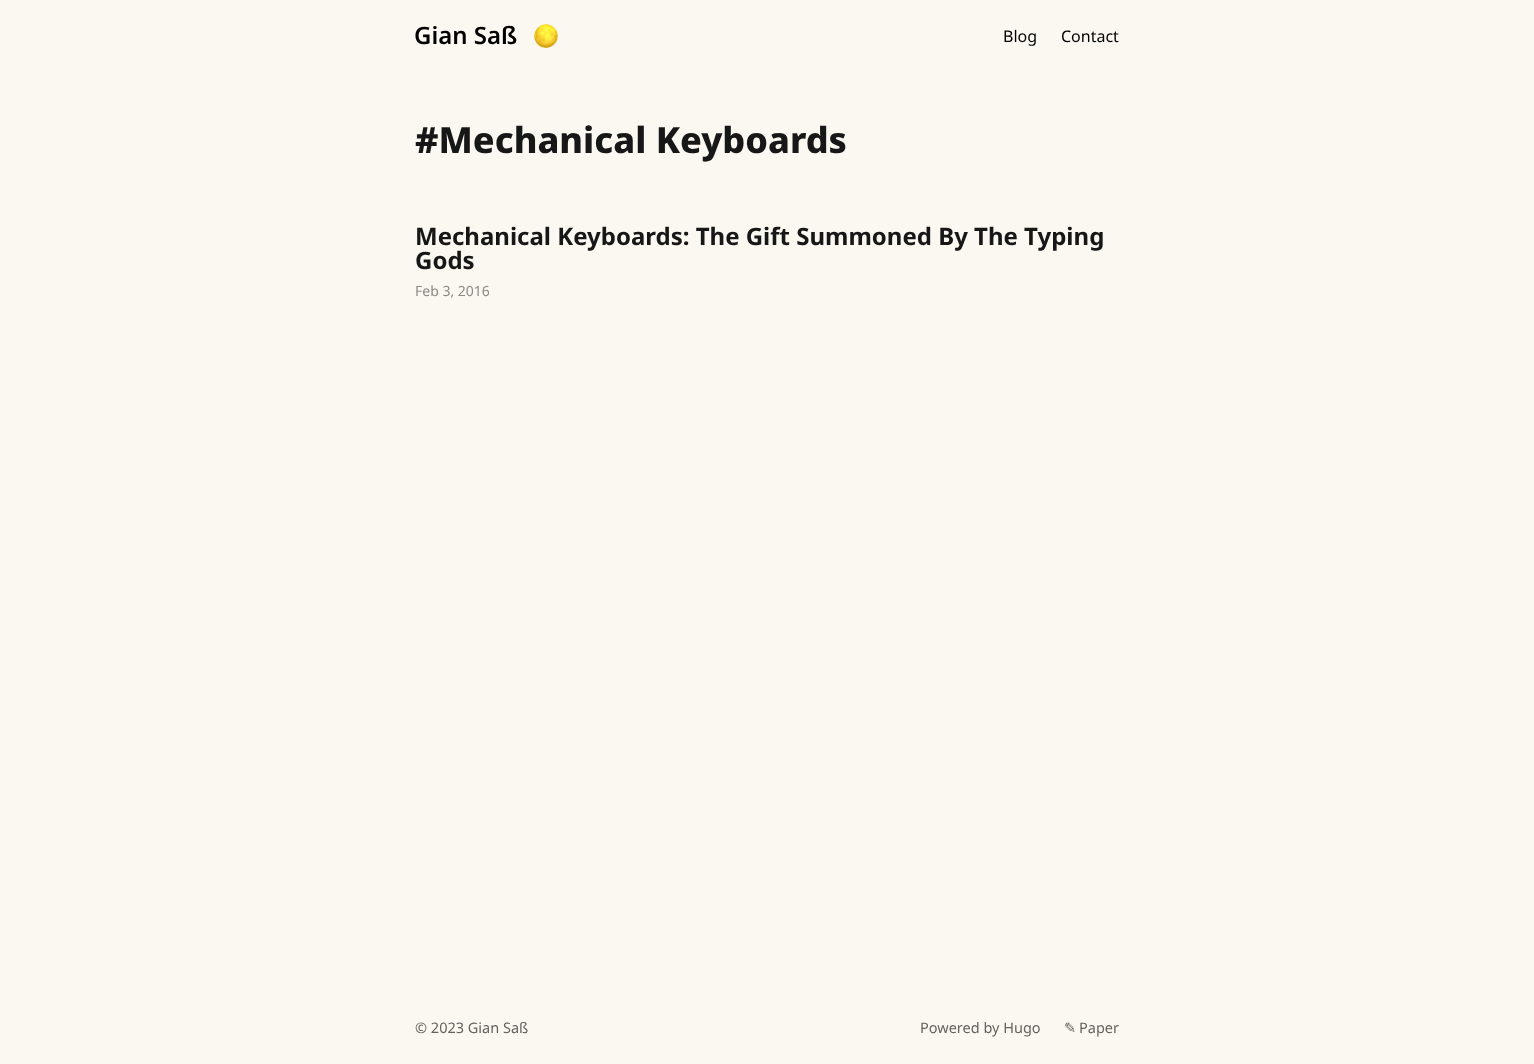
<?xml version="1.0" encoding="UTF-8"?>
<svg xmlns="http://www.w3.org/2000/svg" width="1534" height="1064">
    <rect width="100%" height="100%" fill="#FAF8F1"/>
    <text x="414" y="44" font-family="Noto Sans" font-size="24" font-weight="600" fill="#000000">Gian Saß</text>
    <image x="534" y="24" width="24" height="24" href="img_01.png"/>
    <text x="1003" y="42" font-family="Noto Sans" font-size="16" fill="#000000">Blog</text>
    <text x="1061" y="42" font-family="Noto Sans" font-size="16" fill="#000000">Contact</text>
    <text x="415" y="153" font-family="Noto Sans" font-size="36" font-weight="800" fill="#171717">#Mechanical Keyboards</text>
    <text font-family="Noto Sans" font-size="24" font-weight="700" fill="#171717">
        <tspan x="415" y="245">Mechanical Keyboards: The Gift Summoned By The Typing</tspan>
        <tspan x="415" y="269">Gods</tspan>
    </text>
    <text x="415" y="296" font-family="Noto Sans" font-size="14" fill="#8A8A87">Feb 3, 2016</text>
    <text x="415" y="1033" font-family="Noto Sans" font-size="14.5" fill="#646360">© 2023 Gian Saß</text>
    <text x="920" y="1033" font-family="Noto Sans" font-size="14.5" fill="#646360">Powered by Hugo️️</text>
    <text x="1064" y="1033" font-family="DejaVu Sans" font-size="14.5" fill="#646360">✎</text>
    <text x="1079" y="1033" font-family="Noto Sans" font-size="14.5" fill="#646360">Paper</text>
</svg>
